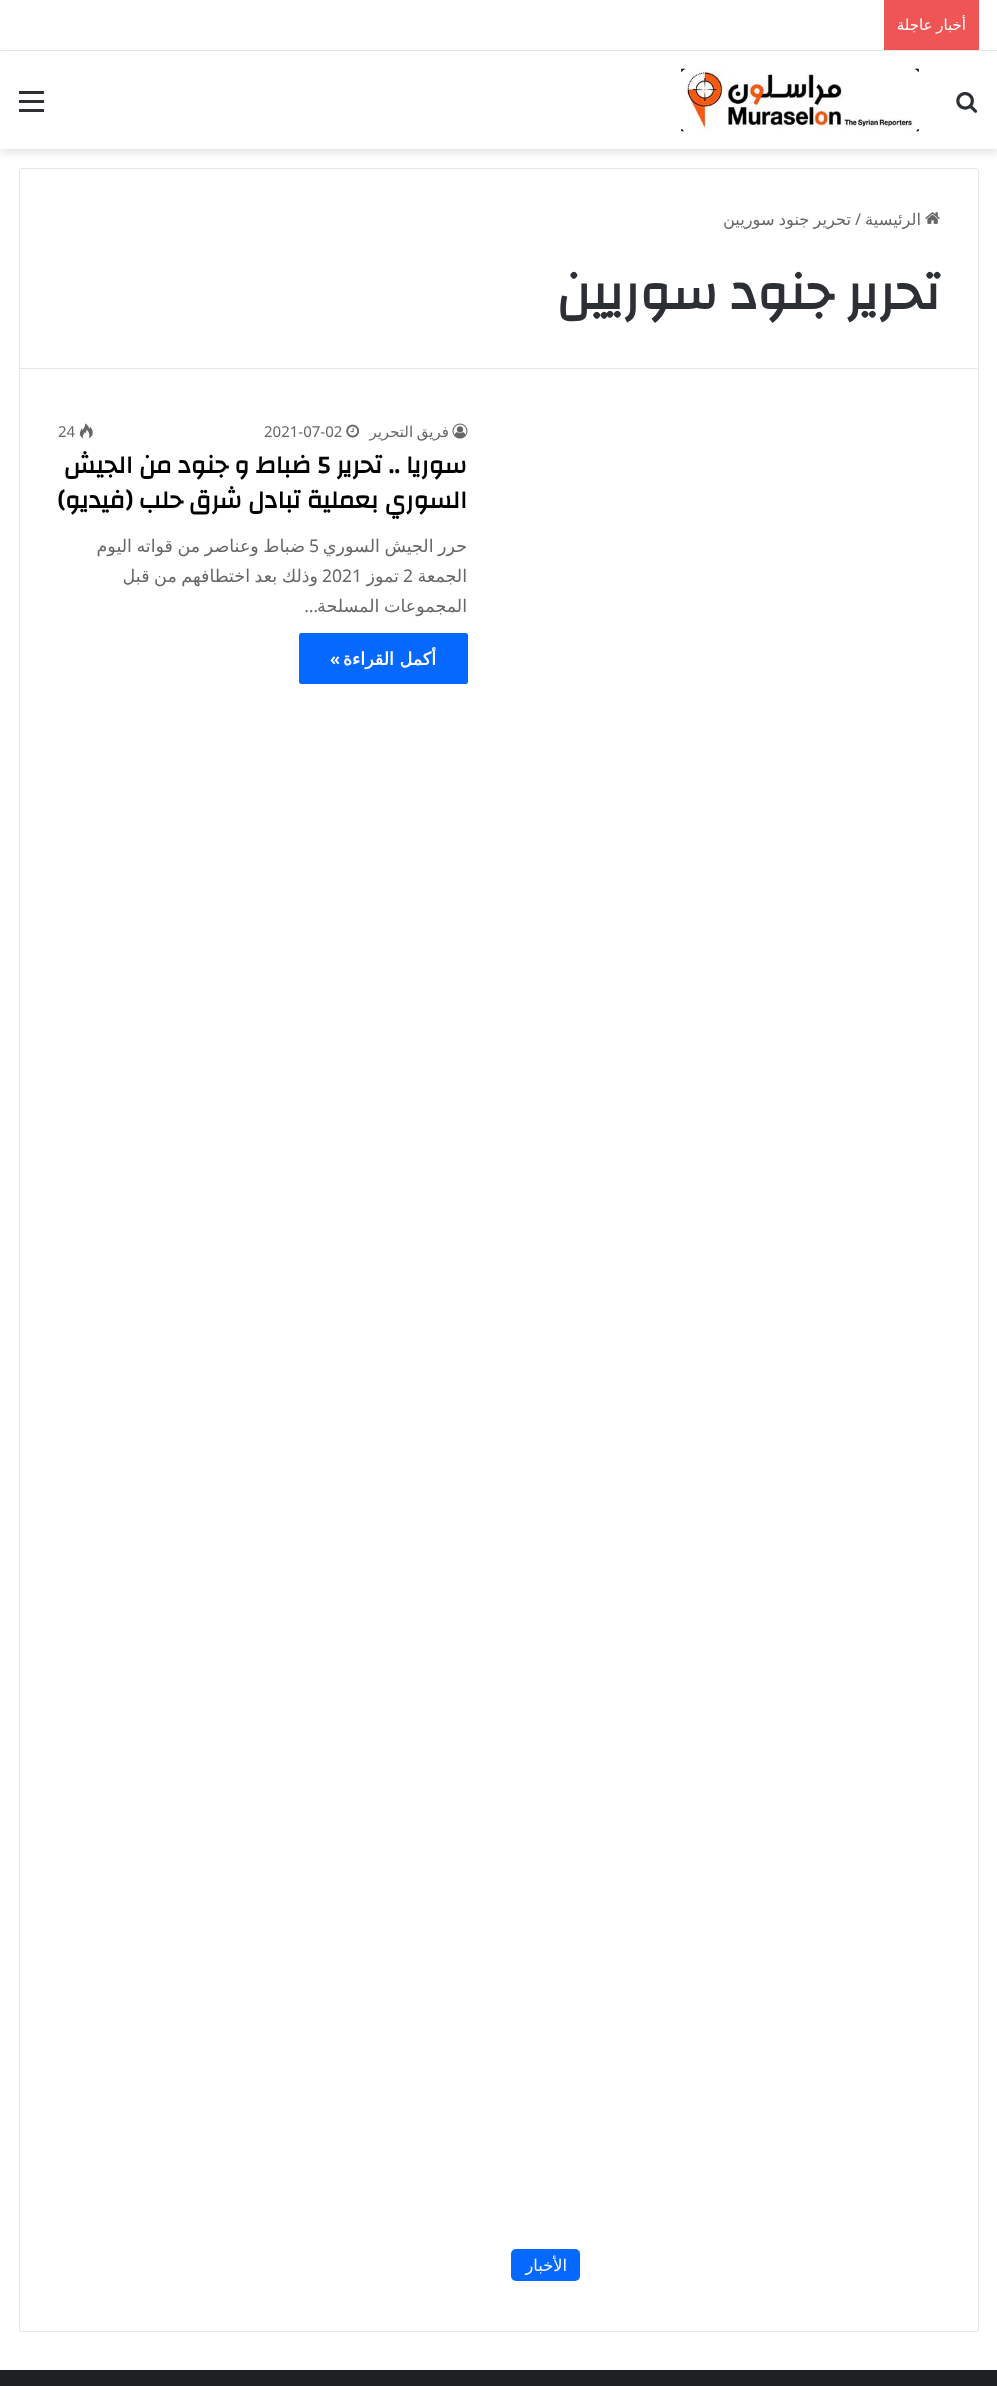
<?xml version="1.0" encoding="UTF-8"?>
<svg xmlns="http://www.w3.org/2000/svg" width="997" height="2386">
    <defs>
        <filter id="blur1" x="-50%" y="-200%" width="200%" height="500%"><feGaussianBlur stdDeviation="4.5"/></filter>
    </defs>
    <rect width="100%" height="100%" fill="#FFFFFF"/>
    <rect x="0" y="55" width="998" height="98" fill="#000000" fill-opacity="0.1" filter="url(#blur1)"/>
    <rect x="6" y="49" width="986" height="1" fill="#FFFFFF"/>
    <rect x="0" y="50" width="997" height="1" fill="#E6E6E6"/>
    <rect x="884" y="0" width="95" height="50" fill="#F05555"/>
    <text x="966" y="30" word-spacing="-1" font-family="DejaVu Sans" font-size="15" direction="rtl" fill="#FFFFFF">أخبار عاجلة</text>
    <rect x="0" y="51" width="997" height="98" fill="#FFFFFF"/>
    <image x="956" y="92" width="22" height="21" href="img_01.png"/>
    <image x="681" y="68" width="238" height="64" href="img_02.png"/>
    <rect x="19" y="100" width="25" height="3" fill="#2C2F34"/>
    <rect x="19" y="91" width="25" height="3" fill="#2C2F34"/>
    <rect x="19" y="109" width="25" height="3" fill="#2C2F34"/>
    <path d="M 21.5 168.5 H 976.5 C 977.5 168.5 978.5 169.5 978.5 170.5 V 368.5 H 19.5 V 170.5 C 19.5 169.5 20.5 168.5 21.5 168.5 Z" fill="none" stroke="#E6E6E6"/>
    <image x="925" y="212" width="15" height="12" href="img_03.png"/>
    <text x="921" y="225" font-family="DejaVu Sans" font-size="16.25" direction="rtl" fill="#666666">الرئيسية</text>
    <text x="855" y="225" font-family="Noto Sans" font-size="16.25" fill="#666666">/</text>
    <text x="851" y="225" word-spacing="-1" font-family="DejaVu Sans" font-size="16.25" direction="rtl" fill="#666666">تحرير جنود سوريين</text>
    <text x="940" y="309" font-family="Changa" font-size="51.25" font-weight="700" direction="rtl" fill="#2C2F34">تحرير جنود سوريين</text>
    <rect x="978" y="369" width="1" height="1962" fill="#E6E6E6"/>
    <rect x="20" y="2331" width="958" height="1" fill="#E6E6E6"/>
    <rect x="19" y="369" width="1" height="1962" fill="#E6E6E6"/>
    <image x="452" y="423" width="16" height="16" href="img_04.png"/>
    <text x="449" y="437" word-spacing="-1" font-family="DejaVu Sans" font-size="15" direction="rtl" fill="#666666">فريق التحرير</text>
    <image x="346" y="424" width="14" height="14" href="img_05.png"/>
    <text x="264" y="437" font-family="Noto Sans" font-size="15" fill="#666666">2021-07-02</text>
    <image x="79" y="423" width="14" height="16" href="img_06.png"/>
    <text x="58" y="437" font-family="Noto Sans" font-size="15" fill="#666666">24</text>
    <text x="467" y="473" font-family="Changa" font-size="25" font-weight="700" direction="rtl" fill="#000000">سوريا .. تحرير</text>
    <text x="317" y="473" font-family="Changa" font-size="25" font-weight="700" fill="#000000">5</text>
    <text x="311" y="473" font-family="Changa" font-size="25" font-weight="700" direction="rtl" fill="#000000">ضباط و جنود من الجيش</text>
    <text x="467" y="508" font-family="Changa" font-size="25" font-weight="700" direction="rtl" fill="#000000">السوري بعملية تبادل شرق حلب (فيديو)</text>
    <text x="467" y="552" word-spacing="-1" font-family="DejaVu Sans" font-size="17.5" direction="rtl" fill="#666666">حرر الجيش السوري</text>
    <text x="309" y="552" font-family="Noto Sans" font-size="17.5" fill="#666666">5</text>
    <text x="305" y="552" word-spacing="-1" font-family="DejaVu Sans" font-size="17.5" direction="rtl" fill="#666666">ضباط وعناصر من قواته اليوم</text>
    <text x="467" y="582" font-family="DejaVu Sans" font-size="17.5" direction="rtl" fill="#666666">الجمعة</text>
    <text x="403" y="582" font-family="Noto Sans" font-size="17.5" fill="#666666">2</text>
    <text x="399" y="582" font-family="DejaVu Sans" font-size="17.5" direction="rtl" fill="#666666">تموز</text>
    <text x="322" y="582" font-family="Noto Sans" font-size="17.5" fill="#666666">2021</text>
    <text x="318" y="582" word-spacing="-1" font-family="DejaVu Sans" font-size="17.5" direction="rtl" fill="#666666">وذلك بعد اختطافهم من قبل</text>
    <text x="467" y="612" word-spacing="-1" font-family="DejaVu Sans" font-size="17.5" direction="rtl" fill="#666666">المجموعات المسلحة</text>
    <text x="318" y="612" font-family="Noto Sans" font-size="17.5" direction="rtl" fill="#666666">…</text>
    <rect x="299" y="633" width="169" height="51" rx="2.5" fill="#0669FF"/>
    <text x="436" y="665" font-family="DejaVu Sans" font-size="17.5" font-weight="700" direction="rtl" fill="#FFFFFF">أكمل القراءة</text>
    <text x="340" y="665" font-family="Noto Sans" font-size="17.5" font-weight="600" direction="rtl" fill="#FFFFFF">»</text>
    <rect x="511" y="2249" width="69" height="32" rx="5" fill="#0669FF"/>
    <text x="567" y="2271" font-family="DejaVu Sans" font-size="16.25" direction="rtl" fill="#FFFFFF">الأخبار</text>
    <rect x="0" y="2370" width="997" height="16" fill="#1F2024"/>
</svg>
